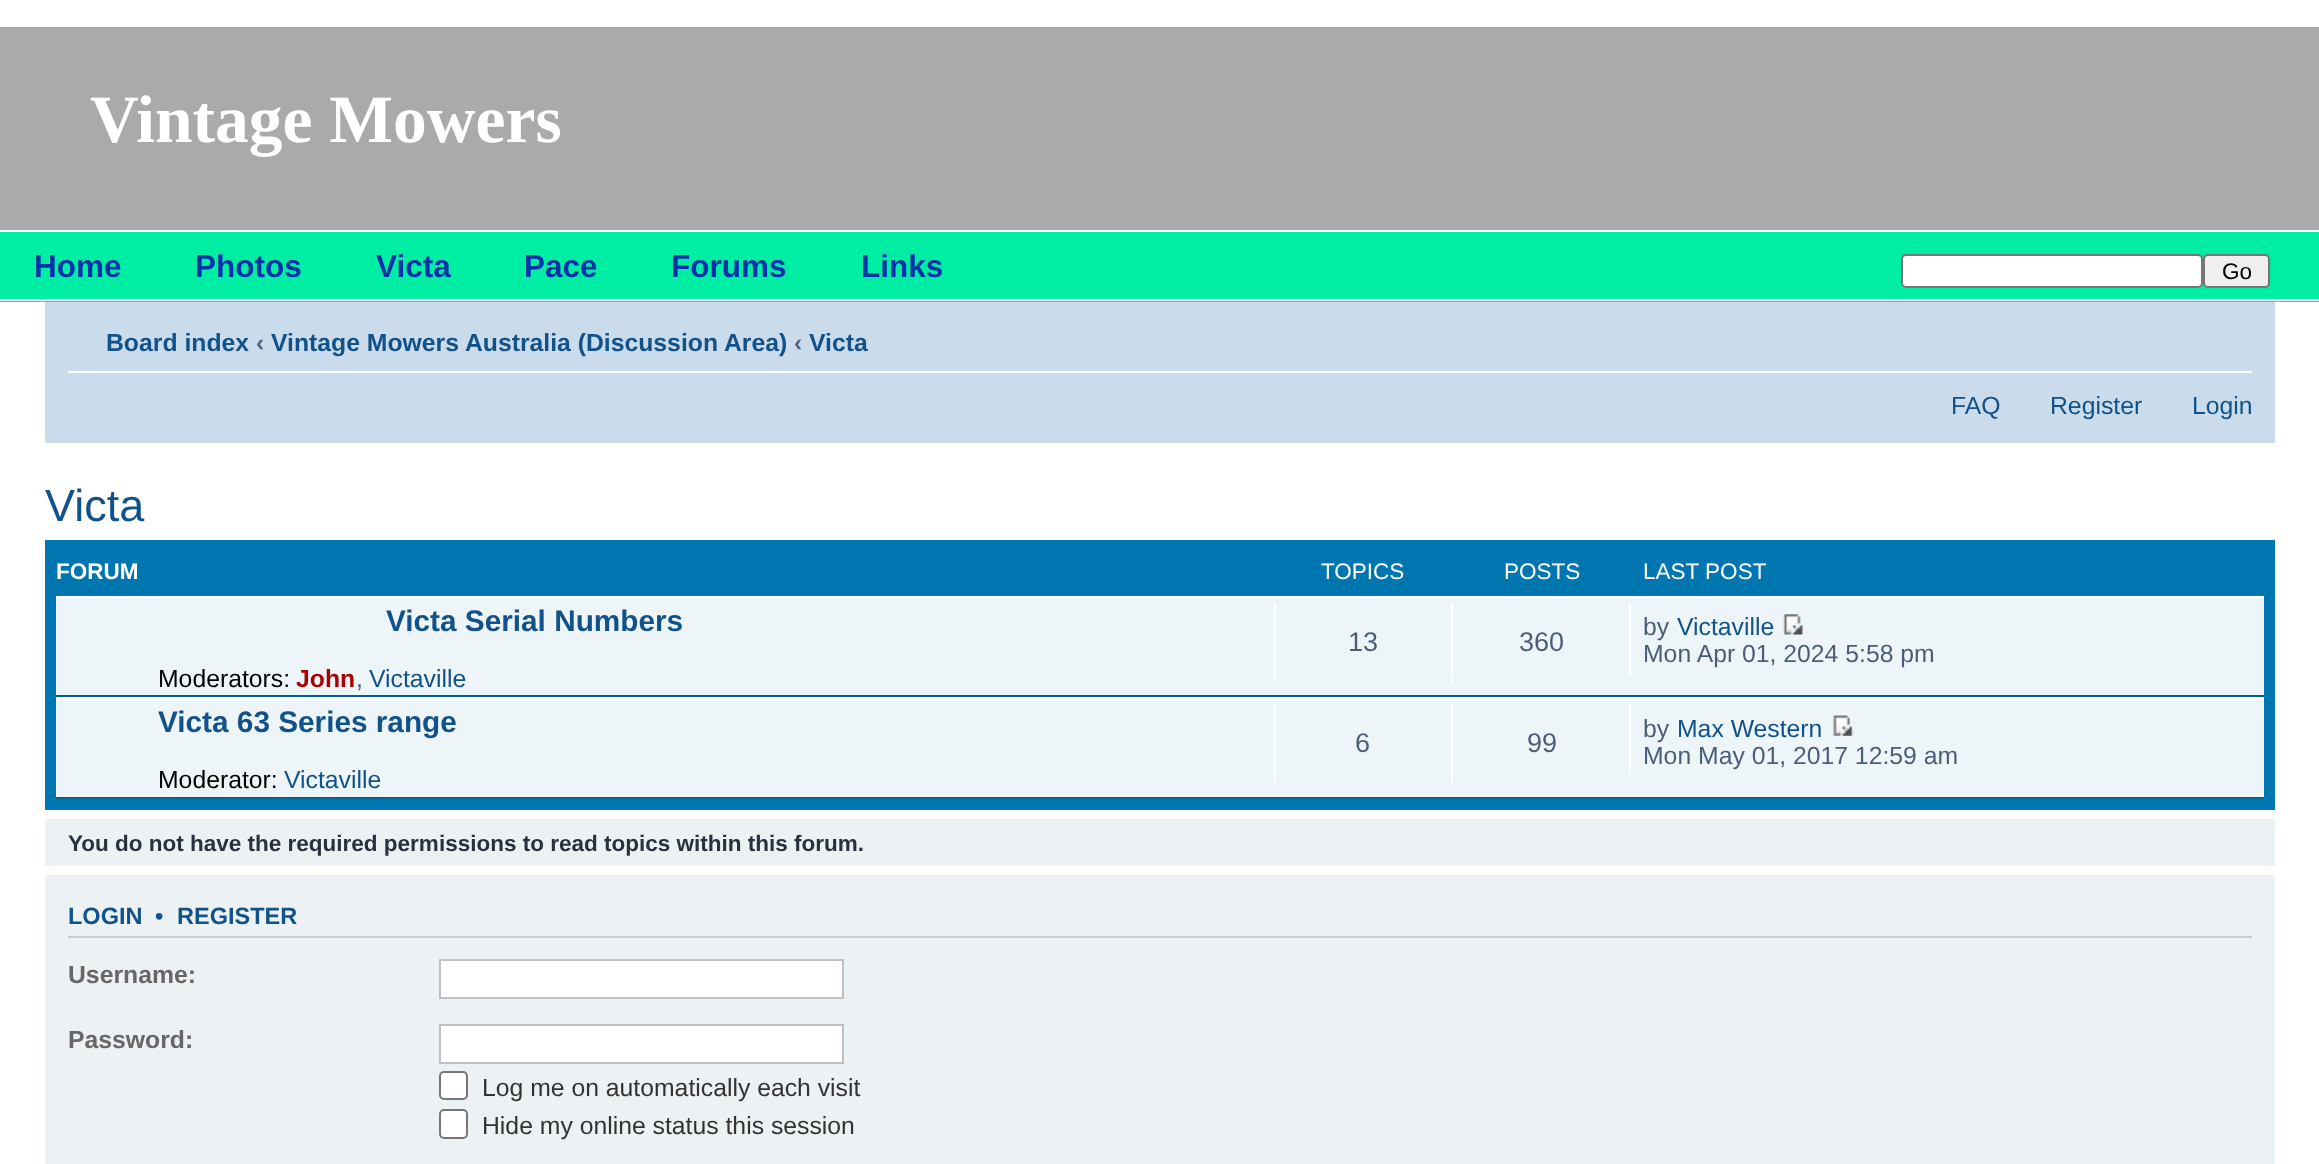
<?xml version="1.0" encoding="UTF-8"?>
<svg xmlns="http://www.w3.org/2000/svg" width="2319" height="1164">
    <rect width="100%" height="100%" fill="#FFFFFF"/>
    <rect x="0" y="27" width="2319" height="203" fill="#AAAAAA"/>
    <text x="90" y="142" font-family="Liberation Serif" font-size="67.5" font-weight="700" fill="#FFFFFF">Vintage Mowers</text>
    <rect x="0" y="232" width="2319" height="70" fill="#00EDA4"/>
    <rect x="0" y="299" width="2319" height="2" fill="#FFFFFF"/>
    <text x="34" y="277" font-family="Liberation Sans" font-size="31.5" font-weight="700" fill="#0033AA">Home</text>
    <text x="195" y="277" font-family="Liberation Sans" font-size="31.5" font-weight="700" fill="#0033AA">Photos</text>
    <text x="376" y="277" font-family="Liberation Sans" font-size="31.5" font-weight="700" fill="#0033AA">Victa</text>
    <text x="524" y="277" font-family="Liberation Sans" font-size="31.5" font-weight="700" fill="#0033AA">Pace</text>
    <text x="671" y="277" font-family="Liberation Sans" font-size="31.5" font-weight="700" fill="#0033AA">Forums</text>
    <text x="861" y="277" font-family="Liberation Sans" font-size="31.5" font-weight="700" fill="#0033AA">Links</text>
    <rect x="1902" y="255" width="300" height="32" rx="4" fill="#FFFFFF" stroke="#767676" stroke-width="2"/>
    <rect x="2204" y="255" width="65" height="32" rx="4" fill="#EFEFEF" stroke="#767676" stroke-width="2"/>
    <text x="2222" y="279" font-family="Liberation Sans" font-size="22.5" fill="#000000">Go</text>
    <rect x="45" y="302" width="2230" height="141" fill="#CADCEB"/>
    <rect x="68" y="371" width="2184" height="2" fill="#FFFFFF"/>
    <text x="106" y="351" font-family="Liberation Sans" font-size="24.75" font-weight="700" fill="#105289">Board index</text>
    <text x="256" y="351" font-family="Liberation Sans" font-size="24.75" font-weight="700" fill="#536482">‹</text>
    <text x="271" y="351" font-family="Liberation Sans" font-size="24.75" font-weight="700" fill="#105289">Vintage Mowers Australia (Discussion Area)</text>
    <text x="794" y="351" font-family="Liberation Sans" font-size="24.75" font-weight="700" fill="#536482">‹</text>
    <text x="809" y="351" font-family="Liberation Sans" font-size="24.75" font-weight="700" fill="#105289">Victa</text>
    <text x="1951" y="414" font-family="Liberation Sans" font-size="24.75" fill="#105289">FAQ</text>
    <text x="2050" y="414" font-family="Liberation Sans" font-size="24.75" fill="#105289">Register</text>
    <text x="2192" y="414" font-family="Liberation Sans" font-size="24.75" fill="#105289">Login</text>
    <text x="45" y="521" font-family="Liberation Sans" font-size="45" fill="#105289">Victa</text>
    <rect x="45" y="540" width="2230" height="270" fill="#0076B1"/>
    <text x="56" y="579" font-family="Liberation Sans" font-size="22.5" font-weight="700" fill="#FFFFFF">FORUM</text>
    <text x="1321" y="579" font-family="Liberation Sans" font-size="22.5" fill="#FFFFFF">TOPICS</text>
    <text x="1504" y="579" font-family="Liberation Sans" font-size="22.5" fill="#FFFFFF">POSTS</text>
    <text x="1643" y="579" font-family="Liberation Sans" font-size="22.5" fill="#FFFFFF">LAST POST</text>
    <rect x="56" y="598" width="2208" height="199" fill="#EEF5F9"/>
    <rect x="56" y="596" width="2208" height="2" fill="#FFFFFF"/>
    <rect x="56" y="695" width="2208" height="2" fill="#00608F"/>
    <text x="386" y="631" font-family="Liberation Sans" font-size="29.75" font-weight="700" fill="#105289">Victa Serial Numbers</text>
    <text x="158" y="687" font-family="Liberation Sans" font-size="24.75" fill="#000000">Moderators:</text>
    <text x="296" y="687" font-family="Liberation Sans" font-size="24.75" font-weight="700" fill="#AA0000">John</text>
    <text x="356" y="687" font-family="Liberation Sans" font-size="24.75" fill="#4C5D77">,</text>
    <text x="369" y="687" font-family="Liberation Sans" font-size="24.75" fill="#105289">Victaville</text>
    <rect x="1274" y="603" width="2" height="79" fill="#FFFFFF"/>
    <text x="1348" y="651" font-family="Liberation Sans" font-size="27" fill="#4C5D77">13</text>
    <rect x="1451" y="603" width="2" height="79" fill="#FFFFFF"/>
    <text x="1519" y="651" font-family="Liberation Sans" font-size="27" fill="#4C5D77">360</text>
    <rect x="1629" y="603" width="2" height="72" fill="#FFFFFF"/>
    <text x="1643" y="635" font-family="Liberation Sans" font-size="24.75" fill="#4C5D77">by</text>
    <text x="1677" y="635" font-family="Liberation Sans" font-size="24.75" fill="#105289">Victaville</text>
    <image x="1783" y="614" width="20" height="21" href="img_01.png"/>
    <text x="1643" y="662" font-family="Liberation Sans" font-size="24.75" fill="#4C5D77">Mon Apr 01, 2024 5:58 pm</text>
    <rect x="56" y="698" width="2208" height="2" fill="#FFFFFF"/>
    <rect x="56" y="797" width="2208" height="2" fill="#00608F"/>
    <text x="158" y="732" font-family="Liberation Sans" font-size="29.75" font-weight="700" fill="#105289">Victa 63 Series range</text>
    <text x="158" y="788" font-family="Liberation Sans" font-size="24.75" fill="#000000">Moderator:</text>
    <text x="284" y="788" font-family="Liberation Sans" font-size="24.75" fill="#105289">Victaville</text>
    <rect x="1274" y="704" width="2" height="79" fill="#FFFFFF"/>
    <text x="1355" y="752" font-family="Liberation Sans" font-size="27" fill="#4C5D77">6</text>
    <rect x="1451" y="704" width="2" height="79" fill="#FFFFFF"/>
    <text x="1527" y="752" font-family="Liberation Sans" font-size="27" fill="#4C5D77">99</text>
    <rect x="1629" y="704" width="2" height="72" fill="#FFFFFF"/>
    <text x="1643" y="737" font-family="Liberation Sans" font-size="24.75" fill="#4C5D77">by</text>
    <text x="1677" y="737" font-family="Liberation Sans" font-size="24.75" fill="#105289">Max Western</text>
    <image x="1833" y="715" width="20" height="21" href="img_02.png"/>
    <text x="1643" y="764" font-family="Liberation Sans" font-size="24.75" fill="#4C5D77">Mon May 01, 2017 12:59 am</text>
    <rect x="45" y="819" width="2230" height="47" fill="#ECF1F3"/>
    <text x="68" y="851" font-family="Liberation Sans" font-size="22.5" font-weight="700" fill="#28313F">You do not have the required permissions to read topics within this forum.</text>
    <rect x="45" y="875" width="2230" height="289" fill="#ECF1F3"/>
    <rect x="68" y="936" width="2184" height="2" fill="#CCCCCC"/>
    <text x="68" y="924" font-family="Liberation Sans" font-size="23.5" font-weight="700" fill="#105289">LOGIN</text>
    <text x="155" y="924" font-family="Liberation Sans" font-size="23.5" font-weight="700" fill="#115098">•</text>
    <text x="177" y="924" font-family="Liberation Sans" font-size="23.5" font-weight="700" fill="#105289">REGISTER</text>
    <text x="68" y="983" font-family="Liberation Sans" font-size="24.75" font-weight="700" fill="#676767">Username:</text>
    <rect x="440" y="960" width="403" height="38" fill="#FFFFFF" stroke="#C0C0C0" stroke-width="2"/>
    <text x="68" y="1048" font-family="Liberation Sans" font-size="24.75" font-weight="700" fill="#676767">Password:</text>
    <rect x="440" y="1025" width="403" height="38" fill="#FFFFFF" stroke="#C0C0C0" stroke-width="2"/>
    <rect x="440" y="1072" width="27" height="27" rx="4" fill="#FFFFFF" stroke="#767676" stroke-width="2"/>
    <text x="482" y="1096" font-family="Liberation Sans" font-size="24.75" fill="#333333">Log me on automatically each visit</text>
    <rect x="440" y="1110" width="27" height="28" rx="4" fill="#FFFFFF" stroke="#767676" stroke-width="2"/>
    <text x="482" y="1134" font-family="Liberation Sans" font-size="24.75" fill="#333333">Hide my online status this session</text>
</svg>
